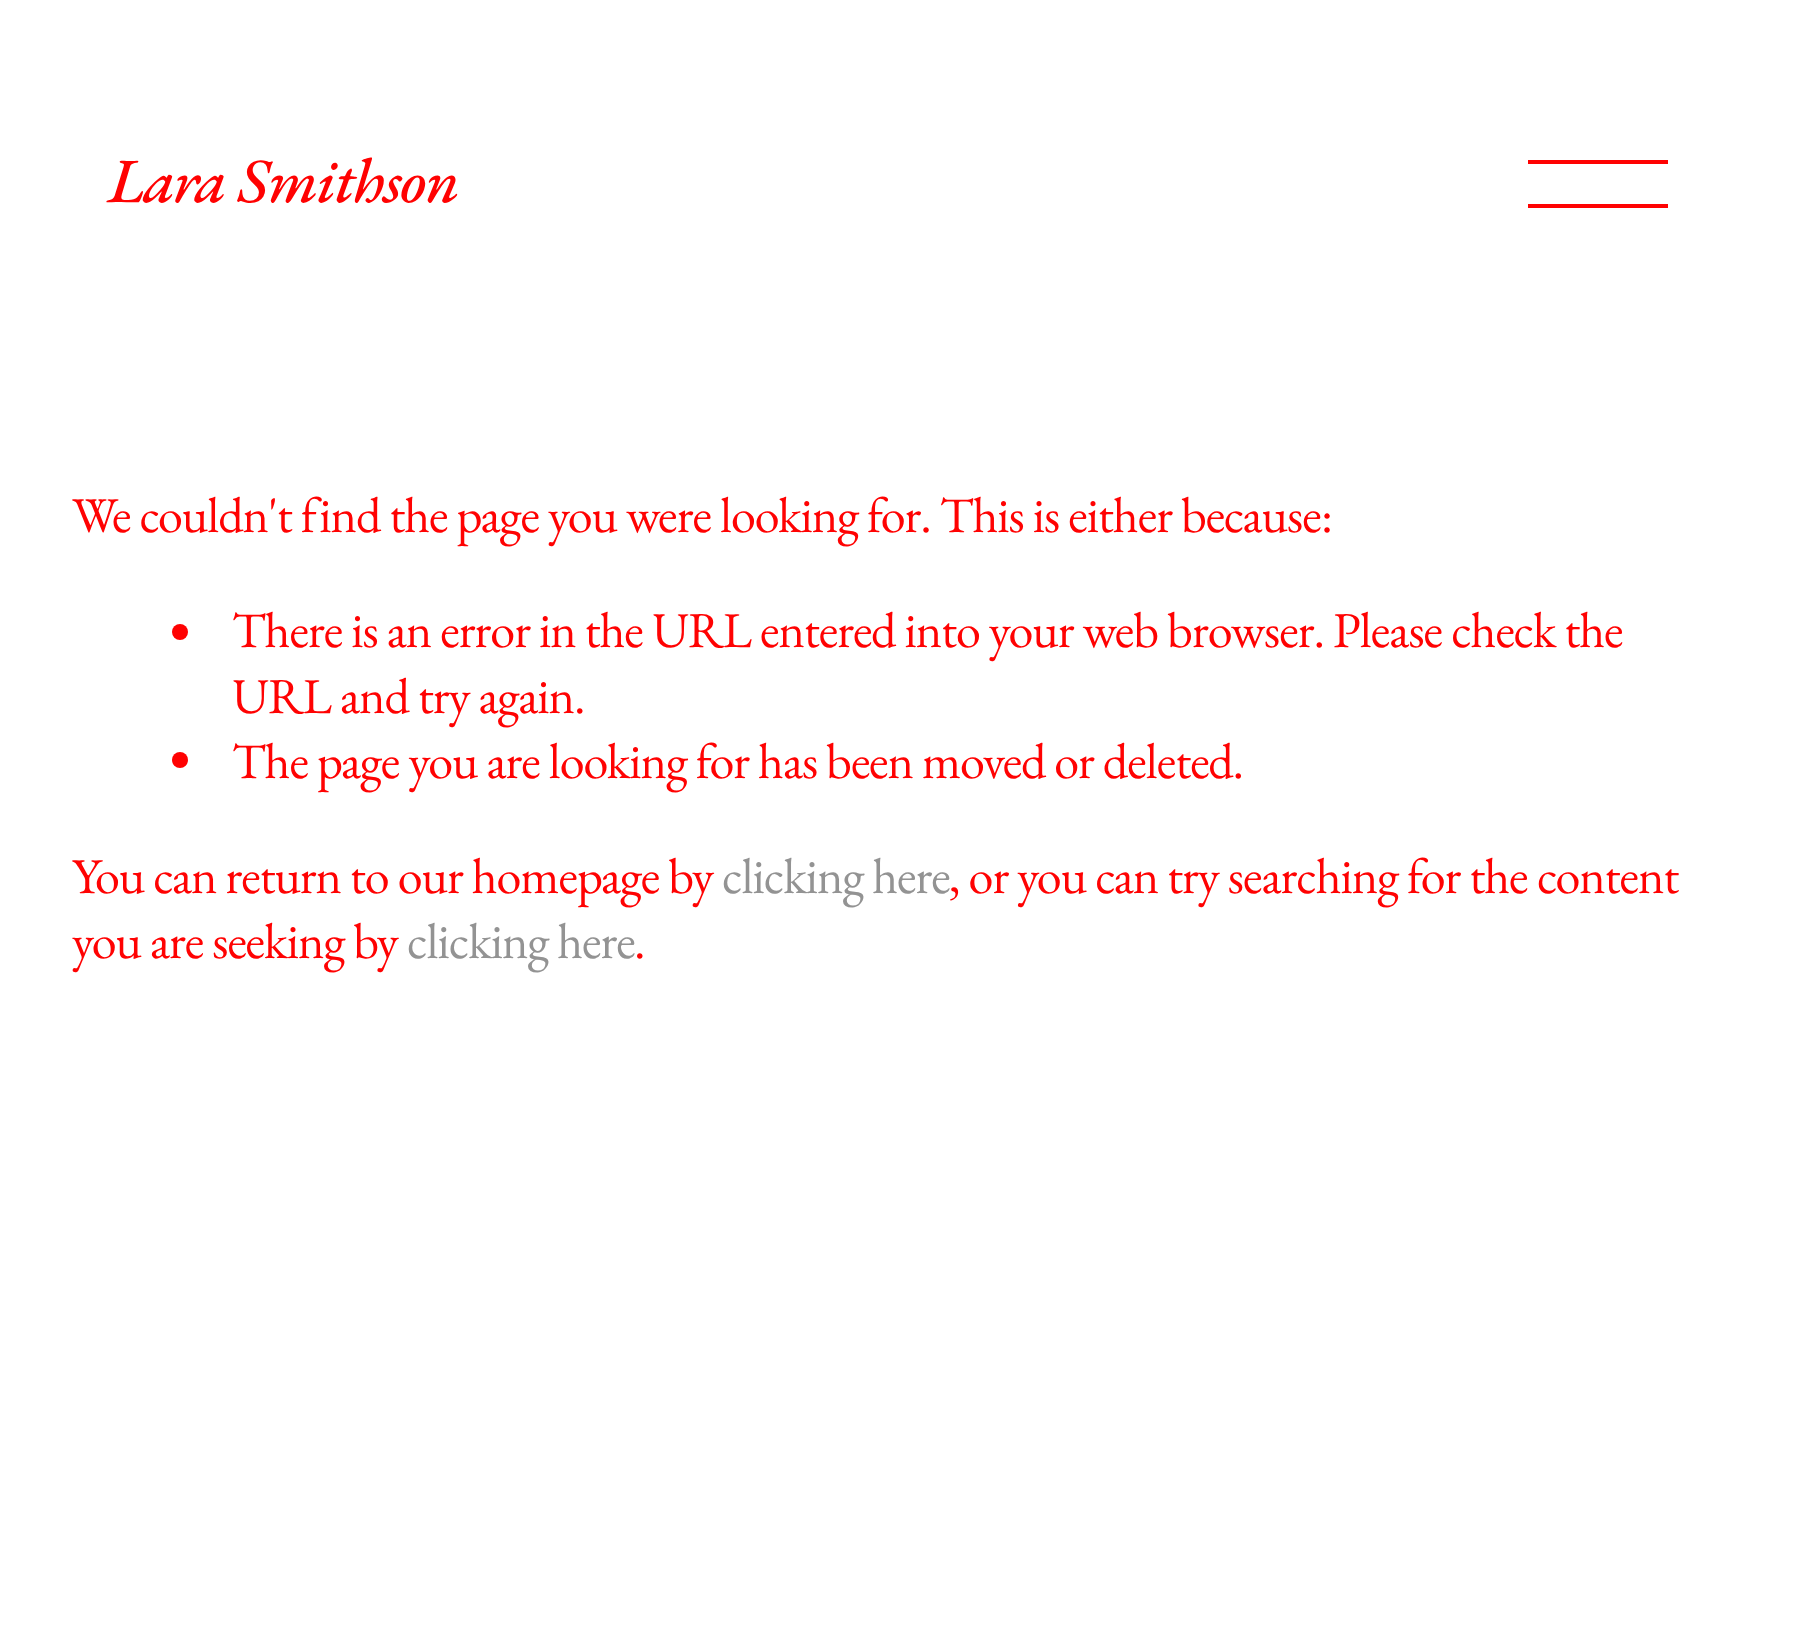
<?xml version="1.0" encoding="UTF-8"?>
<svg xmlns="http://www.w3.org/2000/svg" width="1798" height="1646">
    <rect width="100%" height="100%" fill="#FFFFFF"/>
    <text x="108" y="202" font-family="EB Garamond" font-size="63" font-weight="500" font-style="italic" letter-spacing="-1.25" fill="#FF0202">Lara Smithson</text>
    <rect x="1528" y="160" width="140" height="4" fill="#FF0202"/>
    <rect x="1528" y="204" width="140" height="4" fill="#FF0202"/>
    <text x="72" y="532" font-family="EB Garamond" font-size="50.15" letter-spacing="-1" fill="#FF0202">We couldn't find the page you were looking for. This is either because:</text>
    <circle cx="180" cy="632" r="8" fill="#FF0202"/>
    <text font-family="EB Garamond" font-size="50.15" letter-spacing="-1" fill="#FF0202">
        <tspan x="232" y="647">There is an error in the URL entered into your web browser. Please check the</tspan>
        <tspan x="232" y="713">URL and try again.</tspan>
    </text>
    <circle cx="180" cy="760" r="8" fill="#FF0202"/>
    <text x="232" y="778" font-family="EB Garamond" font-size="50.15" letter-spacing="-1" fill="#FF0202">The page you are looking for has been moved or deleted.</text>
    <text x="72" y="893" font-family="EB Garamond" font-size="50.15" letter-spacing="-1" fill="#FF0202">You can return to our homepage by</text>
    <text x="722" y="893" font-family="EB Garamond" font-size="50.15" letter-spacing="-1" fill="#939393">clicking here</text>
    <text x="949" y="893" font-family="EB Garamond" font-size="50.15" letter-spacing="-1" fill="#FF0202">, or you can try searching for the</text>
    <text x="1537" y="893" font-family="EB Garamond" font-size="50.15" letter-spacing="-1" fill="#FF0202">content</text>
    <text x="72" y="958" font-family="EB Garamond" font-size="50.15" letter-spacing="-1" fill="#FF0202">you are seeking by</text>
    <text x="407" y="958" font-family="EB Garamond" font-size="50.15" letter-spacing="-1" fill="#939393">clicking here</text>
    <text x="634" y="958" font-family="EB Garamond" font-size="50.15" letter-spacing="-1" fill="#FF0202">.</text>
</svg>
